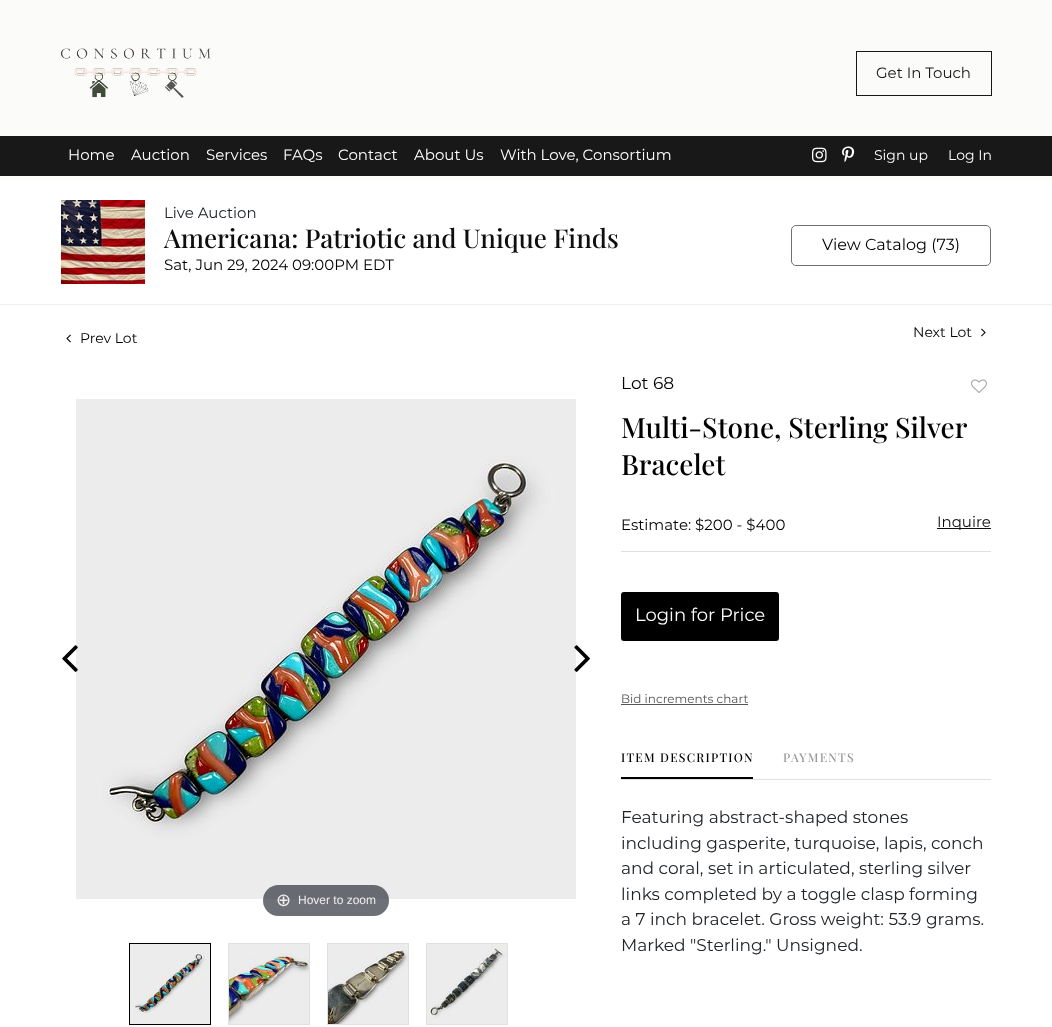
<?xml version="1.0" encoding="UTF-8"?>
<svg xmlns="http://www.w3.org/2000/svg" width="1052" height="1027">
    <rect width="100%" height="100%" fill="#FFFFFF"/>
    <rect x="0" y="0" width="1052" height="180" fill="#FBFBFA"/>
    <image x="60" y="48" width="151" height="50" href="img_01.png"/>
    <rect x="856.5" y="51.5" width="135" height="44" fill="none" stroke="#181818"/>
    <text x="876" y="78" font-family="Montserrat" font-size="15" fill="#181818">Get In Touch</text>
    <rect x="0" y="136" width="1052" height="40" fill="#181818"/>
    <text x="68" y="160" font-family="Montserrat" font-size="15" fill="#FFFFFF">Home</text>
    <text x="131" y="160" font-family="Montserrat" font-size="15" fill="#FFFFFF">Auction</text>
    <text x="206" y="160" font-family="Montserrat" font-size="15" fill="#FFFFFF">Services</text>
    <text x="283" y="160" font-family="Montserrat" font-size="15" fill="#FFFFFF">FAQs</text>
    <text x="338" y="160" font-family="Montserrat" font-size="15" fill="#FFFFFF">Contact</text>
    <text x="414" y="160" font-family="Montserrat" font-size="15" fill="#FFFFFF">About Us</text>
    <text x="500" y="160" font-family="Montserrat" font-size="15" fill="#FFFFFF">With Love, Consortium</text>
    <image x="812" y="147" width="15" height="16" href="img_02.png"/>
    <image x="842" y="146" width="13" height="17" href="img_03.png"/>
    <text x="874" y="160" font-family="Montserrat" font-size="14" fill="#FFFFFF">Sign up</text>
    <text x="948" y="160" font-family="Montserrat" font-size="14" fill="#FFFFFF">Log In</text>
    <image x="61" y="200" width="84" height="84" href="img_04.png"/>
    <text x="164" y="218" font-family="Montserrat" font-size="15" fill="#212529">Live Auction</text>
    <text x="164" y="248" font-family="Playfair Display" font-size="26" font-weight="500" fill="#0E0E0E">Americana: Patriotic and Unique Finds</text>
    <text x="164" y="270" font-family="Montserrat" font-size="15" fill="#000000">Sat, Jun 29, 2024 09:00PM EDT</text>
    <rect x="791.5" y="225.5" width="199" height="40" rx="4.5" fill="none" stroke="#707070"/>
    <text x="822" y="250" font-family="Montserrat" font-size="16" fill="#000000">View Catalog (73)</text>
    <rect x="0" y="304" width="1052" height="1" fill="#EEEEEE"/>
    <image x="66" y="334" width="5" height="9" href="img_05.png"/>
    <text x="80" y="343" font-family="Montserrat" font-size="14" fill="#000000">Prev Lot</text>
    <text x="913" y="337" font-family="Montserrat" font-size="14" fill="#000000">Next Lot</text>
    <image x="981" y="328" width="5" height="9" href="img_06.png"/>
    <image x="76" y="399" width="500" height="500" href="img_09.png"/>
    <image x="62" y="645" width="16" height="27" href="img_07.png"/>
    <image x="574" y="645" width="16" height="27" href="img_08.png"/>
    <rect x="263" y="885" width="126" height="31" rx="15.5" fill="#31333D" fill-opacity="0.7"/>
    <text x="276" y="906" font-family="DejaVu Sans" font-size="18" fill="#EEEEEE">⊕</text>
    <text x="298" y="904" font-family="Liberation Sans" font-size="12" fill="#EEEEEE">Hover to zoom</text>
    <image x="130" y="944" width="80" height="80" href="img_10.png"/>
    <rect x="129.5" y="943.5" width="81" height="81" fill="none" stroke="#000000"/>
    <image x="229" y="944" width="80" height="80" href="img_11.png"/>
    <rect x="228.5" y="943.5" width="81" height="81" fill="none" stroke="#E0E0E0"/>
    <image x="328" y="944" width="80" height="80" href="img_12.png"/>
    <rect x="327.5" y="943.5" width="81" height="81" fill="none" stroke="#E0E0E0"/>
    <image x="427" y="944" width="80" height="80" href="img_13.png"/>
    <rect x="426.5" y="943.5" width="81" height="81" fill="none" stroke="#E0E0E0"/>
    <text x="621" y="389" font-family="Montserrat" font-size="17" fill="#000000">Lot 68</text>
    <image x="971" y="379" width="16" height="14" href="img_14.png"/>
    <text font-family="Playfair Display" font-size="28" font-weight="500" fill="#000000">
        <tspan x="621" y="438">Multi-Stone, Sterling Silver</tspan>
        <tspan x="621" y="475">Bracelet</tspan>
    </text>
    <rect x="621" y="551" width="370" height="1" fill="#E0E0E0"/>
    <text x="621" y="530" font-family="Montserrat" font-size="15" fill="#000000">Estimate: $200 - $400</text>
    <rect x="937" y="528" width="54" height="1" fill="#0E0E0E"/>
    <text x="937" y="527" font-family="Montserrat" font-size="15" fill="#0E0E0E">Inquire</text>
    <rect x="621" y="592" width="158" height="49" rx="3" fill="#000000"/>
    <text x="635" y="621" font-family="Montserrat" font-size="18" fill="#FFFFFF">Login for Price</text>
    <text x="621" y="703" font-family="Montserrat" font-size="12" fill="#555555">Bid increments chart</text>
    <rect x="621" y="704" width="127" height="1" fill="#555555"/>
    <rect x="621" y="779" width="370" height="1" fill="#E0E0E0"/>
    <text x="621" y="762" font-family="Playfair Display" font-size="12" font-weight="500" letter-spacing="1.25" fill="#000000">ITEM DESCRIPTION</text>
    <rect x="621" y="777" width="132" height="2" fill="#000000"/>
    <text x="783" y="762" font-family="Playfair Display" font-size="12" font-weight="500" letter-spacing="1.25" fill="#999999">PAYMENTS</text>
    <text font-family="Montserrat" font-size="17" fill="#212529">
        <tspan x="621" y="823">Featuring abstract-shaped stones</tspan>
        <tspan x="621" y="849">including gasperite, turquoise, lapis, conch</tspan>
        <tspan x="621" y="874">and coral, set in articulated, sterling silver</tspan>
        <tspan x="621" y="900">links completed by a toggle clasp forming</tspan>
        <tspan x="621" y="925">a 7 inch bracelet. Gross weight: 53.9 grams.</tspan>
        <tspan x="621" y="951">Marked "Sterling." Unsigned.</tspan>
    </text>
</svg>
